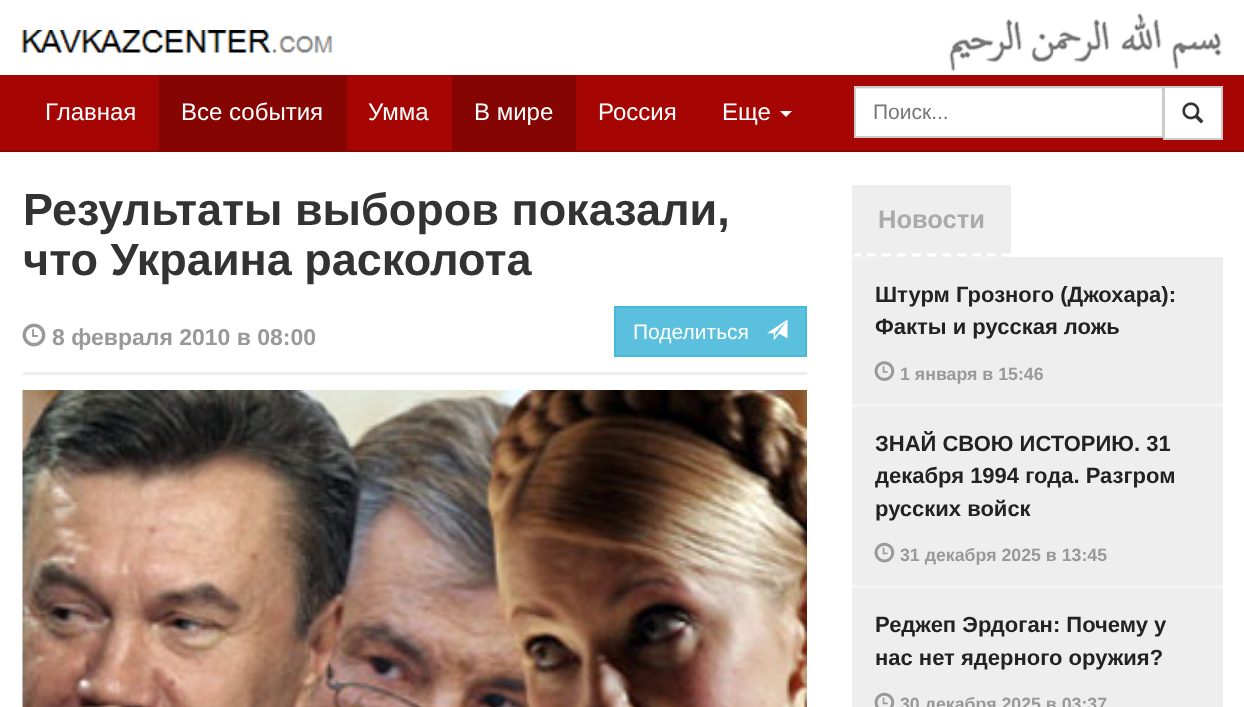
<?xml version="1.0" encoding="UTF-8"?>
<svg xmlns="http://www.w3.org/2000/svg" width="1244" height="707">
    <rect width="100%" height="100%" fill="#FFFFFF"/>
    <image x="22" y="30" width="311" height="23" href="img_01.png"/>
    <image x="949" y="13" width="273" height="58" href="img_02.png"/>
    <rect x="0" y="75" width="1244" height="75" fill="#A50604"/>
    <rect x="0" y="150" width="1244" height="2" fill="#850503"/>
    <text x="45" y="120" font-family="Liberation Sans" font-size="24" fill="#FFFFFF">Главная</text>
    <rect x="159" y="75" width="188" height="75" fill="#850503"/>
    <text x="181" y="120" font-family="Liberation Sans" font-size="24" fill="#FFFFFF">Все события</text>
    <text x="368" y="120" font-family="Liberation Sans" font-size="24" fill="#FFFFFF">Умма</text>
    <rect x="452" y="75" width="124" height="75" fill="#850503"/>
    <text x="474" y="120" font-family="Liberation Sans" font-size="24" fill="#FFFFFF">В мире</text>
    <text x="598" y="120" font-family="Liberation Sans" font-size="24" fill="#FFFFFF">Россия</text>
    <text x="722" y="120" font-family="Liberation Sans" font-size="24" fill="#FFFFFF">Еще</text>
    <path d="M 780 111 H 792 L 786 117 Z" fill="#FFFFFF"/>
    <rect x="856" y="89" width="306" height="47" fill="#FFFFFF"/>
    <rect x="855" y="88" width="308" height="1" fill="#ECECEC"/>
    <rect x="1164" y="87" width="58" height="52" fill="#FFFFFF" stroke="#CCCCCC" stroke-width="2"/>
    <rect x="855" y="87" width="308" height="50" fill="none" stroke="#CCCCCC" stroke-width="2"/>
    <text x="873" y="119" font-family="Liberation Sans" font-size="21" fill="#777777">Поиск...</text>
    <image x="1182" y="102" width="22" height="22" href="img_03.png"/>
    <text font-family="Liberation Sans" font-size="45" font-weight="700" fill="#333333">
        <tspan x="23" y="225">Результаты выборов показали,</tspan>
        <tspan x="23" y="275">что Украина расколота</tspan>
    </text>
    <image x="22" y="323" width="24" height="24" href="img_04.png"/>
    <text x="52" y="345" font-family="Liberation Sans" font-size="23" font-weight="700" fill="#999999">8 февраля 2010 в 08:00</text>
    <rect x="615" y="307" width="191" height="49" fill="#5BC0DE" stroke="#46B8DA" stroke-width="2"/>
    <text x="633" y="339" font-family="Liberation Sans" font-size="21" fill="#FFFFFF">Поделиться</text>
    <image x="767" y="319" width="21" height="22" href="img_05.png"/>
    <rect x="23" y="372" width="784" height="3" fill="#EEEEEE"/>
    <image x="22" y="390" width="785" height="317" href="img_06.png"/>
    <rect x="852" y="185" width="159" height="72" fill="#EEEEEE"/>
    <path d="M 1011 184 V 256 L 1008 254 V 188 Z" fill="#EEEEEE"/>
    <path d="M 852 255 H 1011" fill="none" stroke="#FFFFFF" stroke-width="3" stroke-dasharray="9 6"/>
    <path d="M 852 256 V 184 L 855 188 V 254 Z" fill="#EEEEEE"/>
    <text x="878" y="228" font-family="Liberation Sans" font-size="25.5" font-weight="700" fill="#AAAAAA">Новости</text>
    <rect x="852" y="257" width="371" height="147" fill="#EEEEEE"/>
    <rect x="852" y="404" width="371" height="3" fill="#F5F5F5"/>
    <text font-family="Liberation Sans" font-size="22" font-weight="700" fill="#222222">
        <tspan x="875" y="302">Штурм Грозного (Джохара):</tspan>
        <tspan x="875" y="334">Факты и русская ложь</tspan>
    </text>
    <image x="874" y="361" width="21" height="20" href="img_07.png"/>
    <text x="900" y="380" font-family="Liberation Sans" font-size="17.75" font-weight="700" fill="#999999">1 января в 15:46</text>
    <rect x="852" y="407" width="371" height="178" fill="#EEEEEE"/>
    <rect x="852" y="585" width="371" height="3" fill="#F5F5F5"/>
    <text font-family="Liberation Sans" font-size="22" font-weight="700" fill="#222222">
        <tspan x="875" y="451">ЗНАЙ СВОЮ ИСТОРИЮ. 31</tspan>
        <tspan x="875" y="483">декабря 1994 года. Разгром</tspan>
        <tspan x="875" y="516">русских войск</tspan>
    </text>
    <image x="874" y="542" width="21" height="21" href="img_08.png"/>
    <text x="900" y="561" font-family="Liberation Sans" font-size="17.75" font-weight="700" fill="#999999">31 декабря 2025 в 13:45</text>
    <rect x="852" y="588" width="371" height="119" fill="#EEEEEE"/>
    <text font-family="Liberation Sans" font-size="22" font-weight="700" fill="#222222">
        <tspan x="875" y="632">Реджеп Эрдоган: Почему у</tspan>
        <tspan x="875" y="665">нас нет ядерного оружия?</tspan>
    </text>
    <image x="874" y="692" width="21" height="15" href="img_09.png"/>
    <text x="900" y="710" font-family="Liberation Sans" font-size="17.75" font-weight="700" fill="#999999">30 декабря 2025 в 03:37</text>
</svg>
